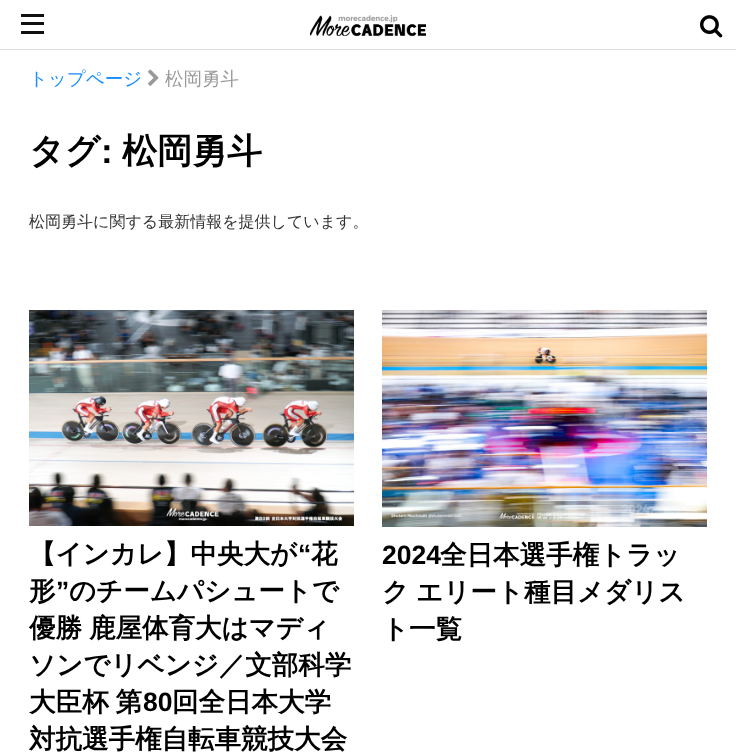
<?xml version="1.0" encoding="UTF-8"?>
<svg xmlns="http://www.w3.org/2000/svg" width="736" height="755">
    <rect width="100%" height="100%" fill="#FFFFFF"/>
    <rect x="0" y="49" width="736" height="1" fill="#DCDDDD"/>
    <rect x="21" y="14" width="23" height="3" fill="#111111"/>
    <rect x="21" y="22" width="23" height="3" fill="#111111"/>
    <rect x="21" y="31" width="23" height="3" fill="#111111"/>
    <image x="310" y="15" width="116" height="21" href="img_01.png"/>
    <image x="700" y="15" width="23" height="23" href="img_02.png"/>
    <text x="29" y="85" font-family="WenQuanYi Zen Hei" font-size="18.5" font-weight="500" fill="#188FFF">トップページ</text>
    <image x="148" y="69" width="11" height="17" href="img_03.png"/>
    <text x="165" y="85" font-family="WenQuanYi Zen Hei" font-size="18.5" font-weight="500" fill="#999999">松岡勇斗</text>
    <text x="29" y="163" font-family="WenQuanYi Zen Hei" font-size="35" font-weight="700" fill="#000000">タグ</text>
    <text x="101" y="163" font-family="Liberation Sans" font-size="35" font-weight="700" fill="#000000">:</text>
    <text x="122" y="163" font-family="WenQuanYi Zen Hei" font-size="35" font-weight="700" fill="#000000">松岡勇斗</text>
    <text x="29" y="227" font-family="WenQuanYi Zen Hei" font-size="16" font-weight="500" fill="#333333">松岡勇斗に関する最新情報を提供しています。</text>
    <image x="29" y="310" width="325" height="216" href="img_04.png"/>
    <text x="29" y="563" font-family="WenQuanYi Zen Hei" font-size="26.5" font-weight="700" fill="#000000">【インカレ】中央大が</text>
    <text x="298" y="563" font-family="Liberation Sans" font-size="26.5" font-weight="700" fill="#000000">“</text>
    <text x="311" y="563" font-family="WenQuanYi Zen Hei" font-size="26.5" font-weight="700" fill="#000000">花</text>
    <text x="29" y="600" font-family="WenQuanYi Zen Hei" font-size="26.5" font-weight="700" fill="#000000">形</text>
    <text x="56" y="600" font-family="Liberation Sans" font-size="26.5" font-weight="700" fill="#000000">”</text>
    <text x="69" y="600" font-family="WenQuanYi Zen Hei" font-size="26.5" font-weight="700" fill="#000000">のチームパシュートで</text>
    <text font-family="WenQuanYi Zen Hei" font-size="26.5" font-weight="700" fill="#000000">
        <tspan x="29" y="637" word-spacing="-1">優勝 鹿屋体育大はマディ</tspan>
        <tspan x="29" y="674">ソンでリベンジ／文部科学</tspan>
        <tspan x="29" y="711" word-spacing="-1">大臣杯 第</tspan>
    </text>
    <text x="143" y="711" font-family="Liberation Sans" font-size="26.5" font-weight="700" fill="#000000">80</text>
    <text x="172" y="711" font-family="WenQuanYi Zen Hei" font-size="26.5" font-weight="700" fill="#000000">回全日本大学</text>
    <text x="29" y="748" font-family="WenQuanYi Zen Hei" font-size="26.5" font-weight="700" fill="#000000">対抗選手権自転車競技大会</text>
    <image x="382" y="310" width="325" height="217" href="img_05.png"/>
    <text x="382" y="564" font-family="Liberation Sans" font-size="26.5" font-weight="700" fill="#000000">2024</text>
    <text x="440" y="564" font-family="WenQuanYi Zen Hei" font-size="26.5" font-weight="700" fill="#000000">全日本選手権トラッ</text>
    <text font-family="WenQuanYi Zen Hei" font-size="26.5" font-weight="700" fill="#000000">
        <tspan x="382" y="601" word-spacing="-1">ク エリート種目メダリス</tspan>
        <tspan x="382" y="638">ト一覧</tspan>
    </text>
</svg>
